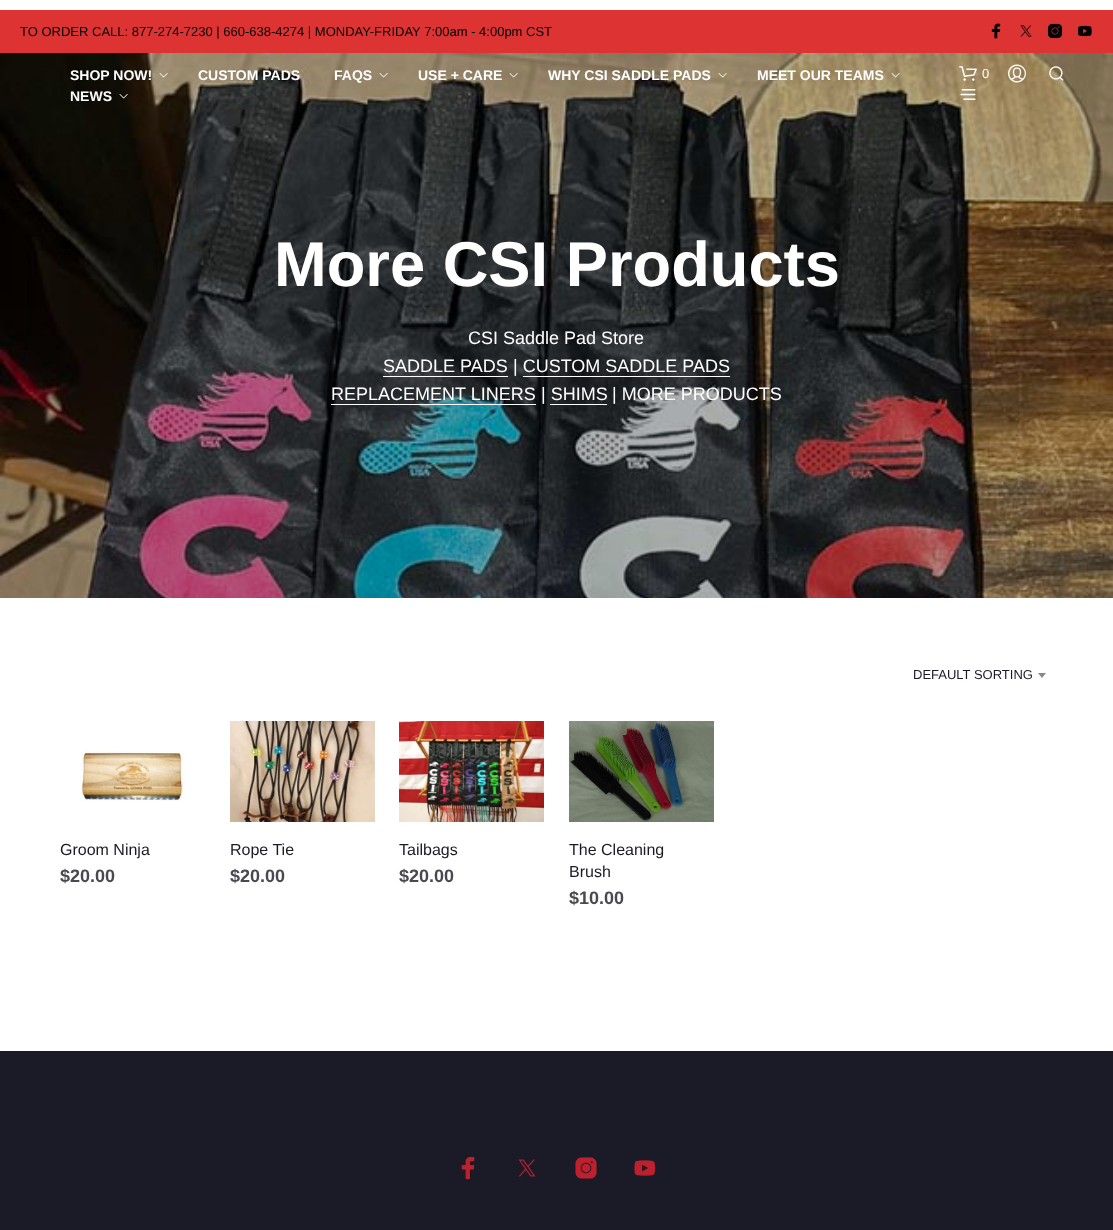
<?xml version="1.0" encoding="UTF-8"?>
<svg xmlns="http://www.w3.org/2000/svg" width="1113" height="1230">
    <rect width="100%" height="100%" fill="#FFFFFF"/>
    <rect x="0" y="10" width="1113" height="43" fill="#DD3333"/>
    <text x="20" y="36" font-family="Liberation Sans" font-size="13" fill="#000000">TO ORDER CALL: 877-274-7230 | 660-638-4274 | MONDAY-FRIDAY 7:00am - 4:00pm CST</text>
    <image x="991" y="23" width="10" height="16" href="img_01.png"/>
    <image x="1020" y="25" width="12" height="12" href="img_02.png"/>
    <image x="1047" y="23" width="16" height="16" href="img_03.png"/>
    <image x="1078" y="25" width="14" height="12" href="img_04.png"/>
    <image x="0" y="53" width="1113" height="545" href="img_15.png"/>
    <text x="70" y="80" font-family="Liberation Sans" font-size="14" font-weight="700" fill="#FFFFFF">SHOP NOW!</text>
    <image x="159" y="73" width="9" height="5" href="img_05.png"/>
    <text x="198" y="80" font-family="Liberation Sans" font-size="14" font-weight="700" fill="#FFFFFF">CUSTOM PADS</text>
    <text x="334" y="80" font-family="Liberation Sans" font-size="14" font-weight="700" fill="#FFFFFF">FAQS</text>
    <image x="379" y="73" width="9" height="5" href="img_06.png"/>
    <text x="418" y="80" font-family="Liberation Sans" font-size="14" font-weight="700" fill="#FFFFFF">USE + CARE</text>
    <image x="509" y="73" width="9" height="5" href="img_07.png"/>
    <text x="548" y="80" font-family="Liberation Sans" font-size="14" font-weight="700" fill="#FFFFFF">WHY CSI SADDLE PADS</text>
    <image x="718" y="73" width="9" height="5" href="img_08.png"/>
    <text x="757" y="80" font-family="Liberation Sans" font-size="14" font-weight="700" fill="#FFFFFF">MEET OUR TEAMS</text>
    <image x="891" y="73" width="9" height="5" href="img_09.png"/>
    <text x="70" y="101" font-family="Liberation Sans" font-size="14" font-weight="700" fill="#FFFFFF">NEWS</text>
    <image x="119" y="94" width="9" height="5" href="img_10.png"/>
    <image x="959" y="66" width="18" height="15" href="img_11.png"/>
    <text x="982" y="78" font-family="Liberation Sans" font-size="13" fill="#FFFFFF">0</text>
    <image x="1008" y="64" width="18" height="19" href="img_12.png"/>
    <image x="1049" y="66" width="15" height="15" href="img_13.png"/>
    <image x="960" y="89" width="16" height="11" href="img_14.png"/>
    <text x="274" y="286" font-family="Liberation Sans" font-size="63.25" font-weight="700" fill="#FFFFFF">More CSI Products</text>
    <text x="468" y="344" font-family="Liberation Sans" font-size="18" fill="#FFFFFF">CSI Saddle Pad Store</text>
    <text x="383" y="372" font-family="Liberation Sans" font-size="18" fill="#FFFFFF">SADDLE PADS</text>
    <rect x="383" y="376" width="125" height="1" fill="#FFFFFF"/>
    <text x="513" y="372" font-family="Liberation Sans" font-size="18" fill="#FFFFFF">| CUSTOM SADDLE PADS</text>
    <rect x="523" y="376" width="207" height="1" fill="#FFFFFF"/>
    <text x="331" y="400" font-family="Liberation Sans" font-size="18" fill="#FFFFFF">REPLACEMENT LINERS</text>
    <rect x="331" y="404" width="205" height="1" fill="#FFFFFF"/>
    <text x="541" y="400" font-family="Liberation Sans" font-size="18" fill="#FFFFFF">| SHIMS</text>
    <text x="612" y="400" font-family="Liberation Sans" font-size="18" fill="#FFFFFF">| MORE PRODUCTS</text>
    <rect x="550" y="404" width="57" height="1" fill="#FFFFFF"/>
    <text x="913" y="679" font-family="Liberation Sans" font-size="13" fill="#1A1B26">DEFAULT SORTING</text>
    <path d="M 1038 673 H 1046 L 1042 678 Z" fill="#888888"/>
    <image x="80" y="750" width="106" height="51" href="img_16.png"/>
    <text x="60" y="855" font-family="Liberation Sans" font-size="16" fill="#1A1B26">Groom Ninja</text>
    <text x="60" y="882" font-family="Liberation Sans" font-size="18" font-weight="700" fill="#484951">$20.00</text>
    <image x="230" y="721" width="145" height="101" href="img_17.png"/>
    <text x="230" y="855" font-family="Liberation Sans" font-size="16" fill="#1A1B26">Rope Tie</text>
    <text x="230" y="882" font-family="Liberation Sans" font-size="18" font-weight="700" fill="#484951">$20.00</text>
    <image x="399" y="721" width="145" height="101" href="img_18.png"/>
    <text x="399" y="855" font-family="Liberation Sans" font-size="16" fill="#1A1B26">Tailbags</text>
    <text x="399" y="882" font-family="Liberation Sans" font-size="18" font-weight="700" fill="#484951">$20.00</text>
    <image x="569" y="721" width="145" height="101" href="img_19.png"/>
    <text font-family="Liberation Sans" font-size="16" fill="#1A1B26">
        <tspan x="569" y="855">The Cleaning</tspan>
        <tspan x="569" y="877">Brush</tspan>
    </text>
    <text x="569" y="904" font-family="Liberation Sans" font-size="18" font-weight="700" fill="#484951">$10.00</text>
    <rect x="0" y="1051" width="1113" height="179" fill="#1A1B26"/>
    <image x="461" y="1157" width="14" height="23" href="img_20.png"/>
    <image x="518" y="1159" width="18" height="18" href="img_21.png"/>
    <image x="575" y="1157" width="22" height="22" href="img_22.png"/>
    <image x="634" y="1160" width="22" height="16" href="img_23.png"/>
</svg>
